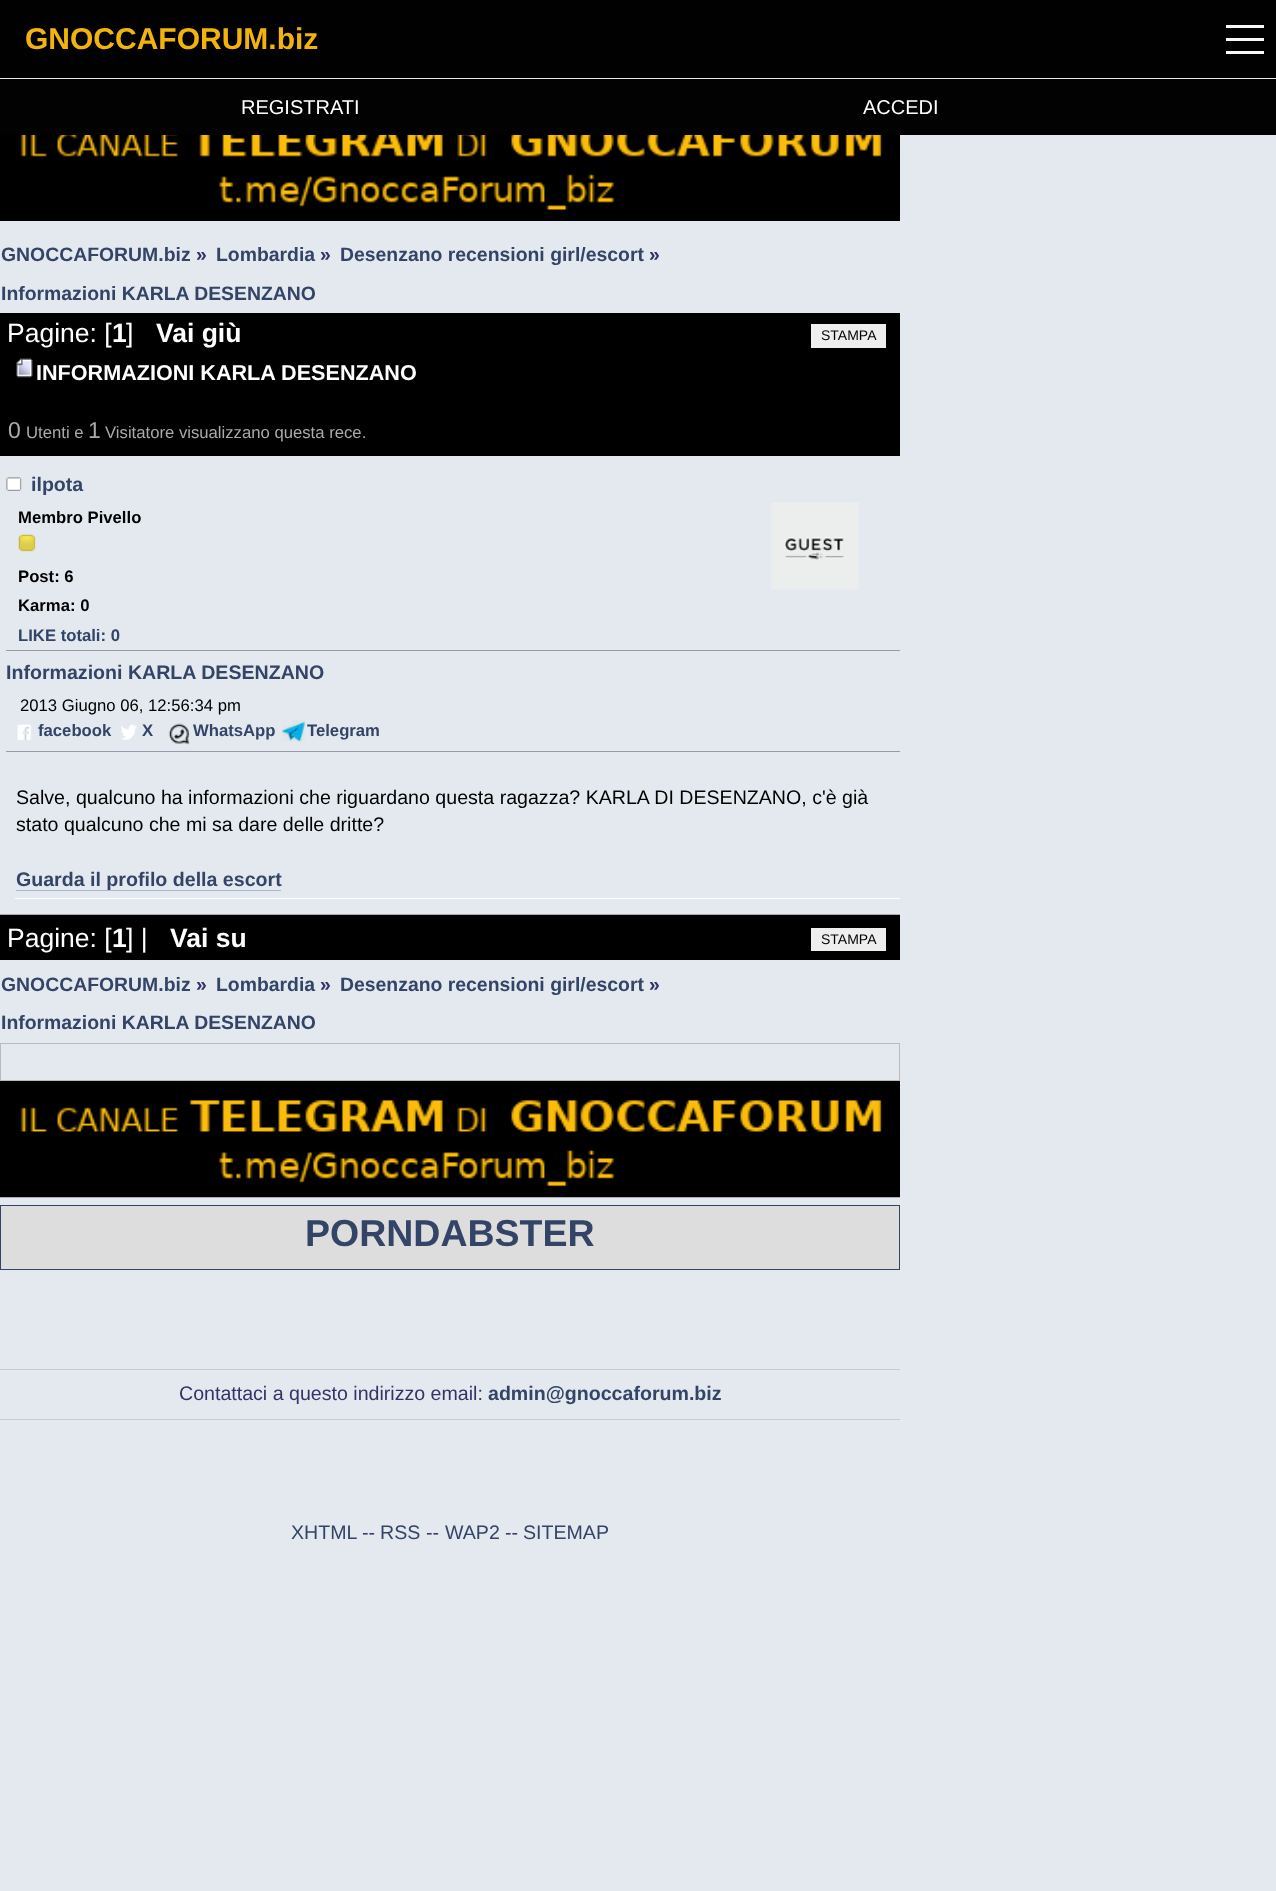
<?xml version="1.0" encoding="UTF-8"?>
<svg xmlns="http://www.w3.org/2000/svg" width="1276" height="1891">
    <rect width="100%" height="100%" fill="#E3E9EF"/>
    <rect x="0" y="0" width="1276" height="78" fill="#010101"/>
    <text x="25" y="49" font-family="Liberation Sans" font-size="30" font-weight="700" fill="#F1B30C">GNOCCAFORUM.biz</text>
    <rect x="0" y="79" width="1276" height="56" fill="#020202"/>
    <rect x="0" y="78" width="1276" height="1" fill="#E7E7E7"/>
    <rect x="1226" y="51" width="38" height="3" fill="#F9F9F9"/>
    <rect x="1226" y="38" width="38" height="3" fill="#F9F9F9"/>
    <rect x="1226" y="25" width="38" height="3" fill="#F9F9F9"/>
    <text x="241" y="114" font-family="Liberation Sans" font-size="20" fill="#FFFFFF">REGISTRATI</text>
    <text x="863" y="114" font-family="Liberation Sans" font-size="20" fill="#FFFFFF">ACCEDI</text>
    <image x="0" y="135" width="900" height="86" href="img_01.png"/>
    <text x="1" y="261" font-family="Liberation Sans" font-size="19.4" font-weight="700" fill="#334466">GNOCCAFORUM.biz</text>
    <text x="196" y="261" font-family="Liberation Sans" font-size="19.4" font-weight="700" fill="#333366">»</text>
    <text x="216" y="261" font-family="Liberation Sans" font-size="19.4" font-weight="700" fill="#334466">Lombardia</text>
    <text x="320" y="261" font-family="Liberation Sans" font-size="19.4" font-weight="700" fill="#333366">»</text>
    <text x="340" y="261" font-family="Liberation Sans" font-size="19.4" font-weight="700" fill="#334466">Desenzano recensioni girl/escort</text>
    <text x="649" y="261" font-family="Liberation Sans" font-size="19.4" font-weight="700" fill="#333366">»</text>
    <text x="1" y="300" font-family="Liberation Sans" font-size="19.4" font-weight="700" fill="#334466">Informazioni KARLA DESENZANO</text>
    <rect x="0" y="313" width="900" height="95" fill="#000000"/>
    <text x="7" y="342" font-family="Liberation Sans" font-size="26.5" fill="#FFFFFF">Pagine: [</text>
    <text x="112" y="342" font-family="Liberation Sans" font-size="26.5" font-weight="700" fill="#FFFFFF">1</text>
    <text x="126" y="342" font-family="Liberation Sans" font-size="26.5" fill="#FFFFFF">]</text>
    <text x="156" y="342" font-family="Liberation Sans" font-size="26.5" font-weight="700" fill="#FFFFFF">Vai giù</text>
    <rect x="811" y="324" width="75" height="24" fill="#EEEEEE"/>
    <text x="821" y="340" font-family="Liberation Sans" font-size="14" fill="#000000">STAMPA</text>
    <image x="16" y="358" width="17" height="20" href="img_02.png"/>
    <text x="36" y="380" font-family="Liberation Sans" font-size="21.6" font-weight="700" fill="#FFFFFF">INFORMAZIONI KARLA DESENZANO</text>
    <rect x="0" y="408" width="900" height="48" fill="#000000"/>
    <text x="8" y="438" font-family="Liberation Sans" font-size="23" fill="#AAAAAA">0</text>
    <text x="26" y="438" font-family="Liberation Sans" font-size="16.7" fill="#AAAAAA">Utenti e</text>
    <text x="88" y="438" font-family="Liberation Sans" font-size="23" fill="#AAAAAA">1</text>
    <text x="105" y="438" font-family="Liberation Sans" font-size="16.7" fill="#AAAAAA">Visitatore visualizzano questa rece.</text>
    <rect x="0" y="914" width="900" height="1" fill="#AAAAAA"/>
    <image x="6" y="477" width="16" height="14" href="img_03.png"/>
    <text x="31" y="491" font-family="Liberation Sans" font-size="19.6" font-weight="700" fill="#334466">ilpota</text>
    <text x="18" y="523" font-family="Liberation Sans" font-size="16.7" font-weight="700" fill="#000000">Membro Pivello</text>
    <image x="771" y="502" width="88" height="88" href="img_04.png"/>
    <image x="18" y="534" width="18" height="18" href="img_05.png"/>
    <text font-family="Liberation Sans" font-size="16.7" font-weight="700" fill="#000000">
        <tspan x="18" y="582">Post: 6</tspan>
        <tspan x="18" y="611">Karma: 0</tspan>
    </text>
    <text x="18" y="641" font-family="Liberation Sans" font-size="16.7" font-weight="700" fill="#334466">LIKE totali: 0</text>
    <rect x="6" y="650" width="894" height="1" fill="#9999AA"/>
    <rect x="6" y="751" width="894" height="1" fill="#9999AA"/>
    <text x="6" y="679" font-family="Liberation Sans" font-size="19.6" font-weight="700" fill="#334466">Informazioni KARLA DESENZANO</text>
    <text x="20" y="711" font-family="Liberation Sans" font-size="16.7" fill="#000000">2013 Giugno 06, 12:56:34 pm</text>
    <image x="17" y="724" width="15" height="17" href="img_06.png"/>
    <text x="38" y="736" font-family="Liberation Sans" font-size="16.7" font-weight="700" fill="#334466">facebook</text>
    <image x="121" y="724" width="16" height="16" href="img_07.png"/>
    <text x="142" y="736" font-family="Liberation Sans" font-size="16.7" font-weight="700" fill="#334466">X</text>
    <image x="168" y="723" width="22" height="22" href="img_08.png"/>
    <text x="193" y="736" font-family="Liberation Sans" font-size="16.7" font-weight="700" fill="#334466">WhatsApp</text>
    <image x="282" y="720" width="23" height="22" href="img_09.png"/>
    <text x="307" y="736" font-family="Liberation Sans" font-size="16.7" font-weight="700" fill="#334466">Telegram</text>
    <text font-family="Liberation Sans" font-size="19.6" fill="#000000">
        <tspan x="16" y="804">Salve, qualcuno ha informazioni che riguardano questa ragazza? KARLA DI DESENZANO, c'è già</tspan>
        <tspan x="16" y="831">stato qualcuno che mi sa dare delle dritte?</tspan>
    </text>
    <rect x="16" y="890" width="265" height="1" fill="#A8B6CF"/>
    <text x="16" y="886" font-family="Liberation Sans" font-size="19.6" font-weight="700" fill="#334466">Guarda il profilo della escort</text>
    <rect x="15" y="898" width="885" height="1" fill="#FFFFFF"/>
    <rect x="0" y="915" width="900" height="45" fill="#000000"/>
    <text x="7" y="947" font-family="Liberation Sans" font-size="26.5" fill="#FFFFFF">Pagine: [</text>
    <text x="112" y="947" font-family="Liberation Sans" font-size="26.5" font-weight="700" fill="#FFFFFF">1</text>
    <text x="126" y="947" font-family="Liberation Sans" font-size="26.5" fill="#FFFFFF">] |</text>
    <text x="170" y="947" font-family="Liberation Sans" font-size="26.5" font-weight="700" fill="#FFFFFF">Vai su</text>
    <rect x="811" y="928" width="75" height="23" fill="#EEEEEE"/>
    <text x="821" y="944" font-family="Liberation Sans" font-size="14" fill="#000000">STAMPA</text>
    <text x="1" y="991" font-family="Liberation Sans" font-size="19.4" font-weight="700" fill="#334466">GNOCCAFORUM.biz</text>
    <text x="196" y="991" font-family="Liberation Sans" font-size="19.4" font-weight="700" fill="#333366">»</text>
    <text x="216" y="991" font-family="Liberation Sans" font-size="19.4" font-weight="700" fill="#334466">Lombardia</text>
    <text x="320" y="991" font-family="Liberation Sans" font-size="19.4" font-weight="700" fill="#333366">»</text>
    <text x="340" y="991" font-family="Liberation Sans" font-size="19.4" font-weight="700" fill="#334466">Desenzano recensioni girl/escort</text>
    <text x="649" y="991" font-family="Liberation Sans" font-size="19.4" font-weight="700" fill="#333366">»</text>
    <text x="1" y="1029" font-family="Liberation Sans" font-size="19.4" font-weight="700" fill="#334466">Informazioni KARLA DESENZANO</text>
    <rect x="0.5" y="1043.5" width="899" height="37" fill="none" stroke="#BBBBBB"/>
    <image x="0" y="1081" width="900" height="117" href="img_10.png"/>
    <rect x="0.5" y="1205.5" width="899" height="64" fill="#DDDDDD" stroke="#334466"/>
    <text x="305" y="1246" font-family="Liberation Sans" font-size="37.5" font-weight="700" fill="#334466">PORNDABSTER</text>
    <rect x="0" y="1369" width="900" height="1" fill="#CCCCCC"/>
    <text x="179" y="1400" font-family="Liberation Sans" font-size="19.6" fill="#333366">Contattaci a questo indirizzo email:</text>
    <text x="488" y="1400" font-family="Liberation Sans" font-size="19.6" font-weight="700" fill="#334466">admin@gnoccaforum.biz</text>
    <rect x="0" y="1419" width="900" height="1" fill="#CCCCCC"/>
    <text x="291" y="1539" font-family="Liberation Sans" font-size="19.6" fill="#334466">XHTML</text>
    <text x="362" y="1539" font-family="Liberation Sans" font-size="19.6" fill="#333366">--</text>
    <text x="380" y="1539" font-family="Liberation Sans" font-size="19.6" fill="#334466">RSS</text>
    <text x="426" y="1539" font-family="Liberation Sans" font-size="19.6" fill="#333366">--</text>
    <text x="445" y="1539" font-family="Liberation Sans" font-size="19.6" fill="#334466">WAP2</text>
    <text x="505" y="1539" font-family="Liberation Sans" font-size="19.6" fill="#333366">--</text>
    <text x="523" y="1539" font-family="Liberation Sans" font-size="19.6" fill="#334466">SITEMAP</text>
</svg>
